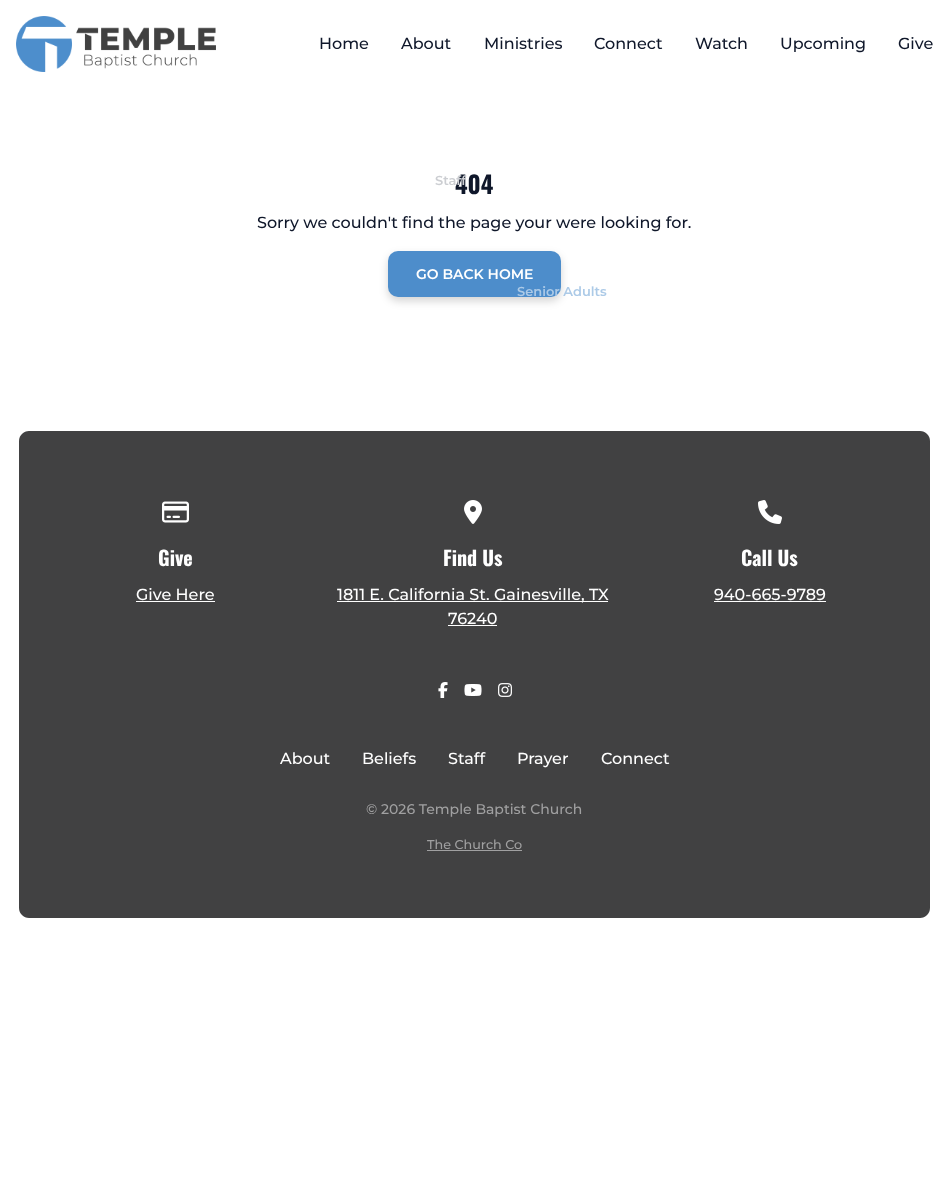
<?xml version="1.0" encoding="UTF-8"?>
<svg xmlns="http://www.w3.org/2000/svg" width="949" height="1182">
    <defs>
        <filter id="blur1" x="-50%" y="-200%" width="200%" height="500%"><feGaussianBlur stdDeviation="4"/></filter>
    </defs>
    <rect width="100%" height="100%" fill="#FFFFFF"/>
    <image x="16" y="16" width="200" height="56" href="img_01.png"/>
    <text x="319" y="49" font-family="Montserrat" font-size="16" font-weight="500" fill="#0F172A">Home</text>
    <text x="401" y="49" font-family="Montserrat" font-size="16" font-weight="500" fill="#0F172A">About</text>
    <text x="455" y="194" font-family="Oswald" font-size="24" font-weight="700" fill="#0F172A">404</text>
    <text x="435" y="185" font-family="Montserrat" font-size="13" font-weight="600" fill="#CCCED2">Staff</text>
    <text x="484" y="49" font-family="Montserrat" font-size="16" font-weight="500" fill="#0F172A">Ministries</text>
    <rect x="388" y="255" width="173" height="46" rx="10" fill="#000000" fill-opacity="0.17" filter="url(#blur1)"/>
    <rect x="388" y="251" width="173" height="46" rx="10" fill="#4D8DCB"/>
    <text x="517" y="296" font-family="Montserrat" font-size="13" font-weight="600" fill="#ACCAE7">Senior Adults</text>
    <text x="594" y="49" font-family="Montserrat" font-size="16" font-weight="500" fill="#0F172A">Connect</text>
    <text x="695" y="49" font-family="Montserrat" font-size="16" font-weight="500" fill="#0F172A">Watch</text>
    <text x="780" y="49" font-family="Montserrat" font-size="16" font-weight="500" fill="#0F172A">Upcoming</text>
    <text x="898" y="49" font-family="Montserrat" font-size="16" font-weight="500" fill="#0F172A">Give</text>
    <text x="257" y="228" font-family="Montserrat" font-size="16" font-weight="500" fill="#0F172A">Sorry we couldn't find the page your were looking for.</text>
    <text x="416" y="279" font-family="Montserrat" font-size="14" font-weight="600" fill="#FFFFFF">GO BACK HOME</text>
    <path d="M 29 431 H 920 C 925.5 431 930 435.5 930 441 V 647 H 19 V 441 C 19 435.5 23.5 431 29 431 Z" fill="#414142"/>
    <image x="162" y="501" width="27" height="22" href="img_02.png"/>
    <text x="158" y="566" font-family="Oswald" font-size="20" font-weight="700" fill="#FFFFFF">Give</text>
    <text x="136" y="600" font-family="Montserrat" font-size="16" font-weight="500" fill="#FFFFFF">Give Here</text>
    <rect x="136" y="601" width="79" height="1" fill="#FFFFFF"/>
    <image x="464" y="500" width="18" height="24" href="img_03.png"/>
    <text x="443" y="566" font-family="Oswald" font-size="20" font-weight="700" fill="#FFFFFF">Find Us</text>
    <rect x="337" y="601" width="271" height="1" fill="#FFFFFF"/>
    <text x="337" y="600" font-family="Montserrat" font-size="16" font-weight="500" fill="#FFFFFF">1811 E. California St. Gainesville, TX</text>
    <text x="448" y="624" font-family="Montserrat" font-size="16" font-weight="500" fill="#FFFFFF">76240</text>
    <rect x="448" y="625" width="49" height="1" fill="#FFFFFF"/>
    <image x="758" y="500" width="24" height="24" href="img_04.png"/>
    <text x="741" y="566" font-family="Oswald" font-size="20" font-weight="700" fill="#FFFFFF">Call Us</text>
    <text x="714" y="600" font-family="Montserrat" font-size="16" font-weight="500" fill="#FFFFFF">940-665-9789</text>
    <rect x="714" y="601" width="112" height="1" fill="#FFFFFF"/>
    <path d="M 19 647 H 930 V 908 C 930 913.5 925.5 918 920 918 H 29 C 23.5 918 19 913.5 19 908 Z" fill="#414142"/>
    <image x="438" y="682" width="10" height="16" href="img_05.png"/>
    <image x="464" y="684" width="18" height="12" href="img_06.png"/>
    <image x="498" y="683" width="14" height="14" href="img_07.png"/>
    <text x="280" y="764" font-family="Montserrat" font-size="16" font-weight="500" fill="#FFFFFF">About</text>
    <text x="362" y="764" font-family="Montserrat" font-size="16" font-weight="500" fill="#FFFFFF">Beliefs</text>
    <text x="448" y="764" font-family="Montserrat" font-size="16" font-weight="500" fill="#FFFFFF">Staff</text>
    <text x="517" y="764" font-family="Montserrat" font-size="16" font-weight="500" fill="#FFFFFF">Prayer</text>
    <text x="601" y="764" font-family="Montserrat" font-size="16" font-weight="500" fill="#FFFFFF">Connect</text>
    <text x="366" y="814" font-family="Montserrat" font-size="14" font-weight="500" fill="#A0A0A1">© 2026 Temple Baptist Church</text>
    <text x="427" y="849" font-family="Montserrat" font-size="12.75" font-weight="500" fill="#A0A0A1">The Church Co</text>
    <rect x="427" y="850" width="95" height="1" fill="#A0A0A1"/>
</svg>
